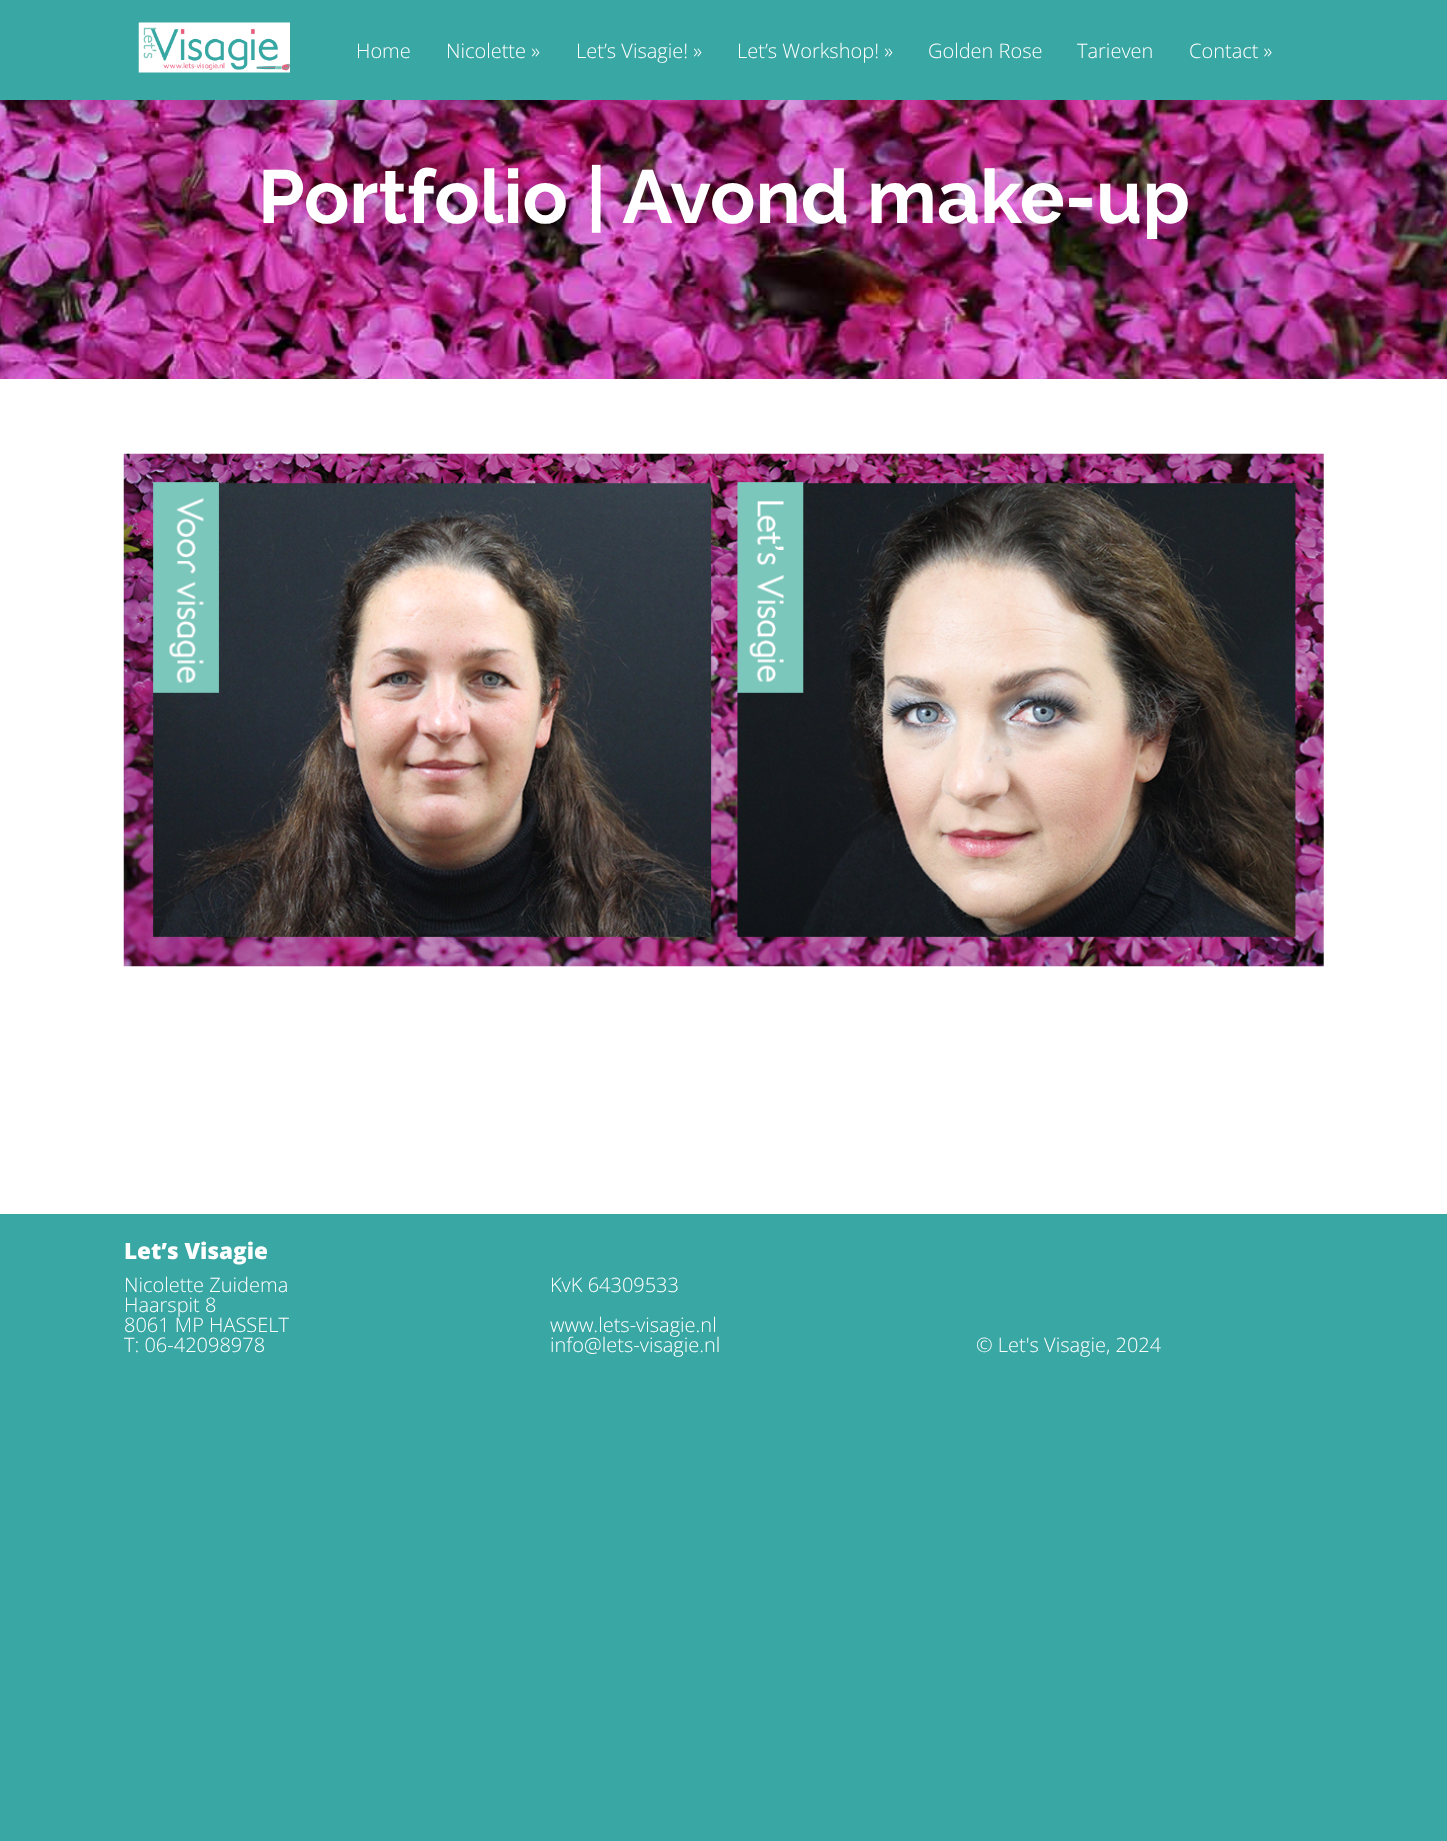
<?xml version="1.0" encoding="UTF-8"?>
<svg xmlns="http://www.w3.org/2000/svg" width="1447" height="1841">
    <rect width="100%" height="100%" fill="#39A7A3"/>
    <image x="138" y="22" width="152" height="51" href="img_01.png"/>
    <text x="356" y="58" font-family="Open Sans" font-size="20" font-weight="300" fill="#FFFFFF">Home</text>
    <text x="446" y="58" font-family="Open Sans" font-size="20" font-weight="300" fill="#FFFFFF">Nicolette »</text>
    <text x="576" y="58" font-family="Open Sans" font-size="20" font-weight="300" fill="#FFFFFF">Let’s Visagie! »</text>
    <text x="737" y="58" font-family="Open Sans" font-size="20" font-weight="300" fill="#FFFFFF">Let’s Workshop! »</text>
    <text x="928" y="58" font-family="Open Sans" font-size="20" font-weight="300" fill="#FFFFFF">Golden Rose</text>
    <text x="1077" y="58" font-family="Open Sans" font-size="20" font-weight="300" fill="#FFFFFF">Tarieven</text>
    <text x="1189" y="58" font-family="Open Sans" font-size="20" font-weight="300" fill="#FFFFFF">Contact »</text>
    <image x="0" y="100" width="1447" height="279" href="img_02.png"/>
    <text x="258" y="223" font-family="Raleway" font-size="75" font-weight="700" fill="#FFFFFF">Portfolio | Avond make-up</text>
    <rect x="0" y="379" width="1447" height="835" fill="#FFFFFF"/>
    <image x="123" y="453" width="1201" height="514" href="img_03.png"/>
    <text x="124" y="1259" font-family="Open Sans" font-size="22.5" font-weight="800" fill="#FFFFFF">Let’s Visagie</text>
    <text font-family="Open Sans" font-size="20" font-weight="300" fill="#FFFFFF">
        <tspan x="124" y="1292">Nicolette Zuidema</tspan>
        <tspan x="124" y="1312">Haarspit 8</tspan>
        <tspan x="124" y="1332">8061 MP HASSELT</tspan>
        <tspan x="124" y="1352">T: 06-42098978</tspan>
    </text>
    <text x="550" y="1292" font-family="Open Sans" font-size="20" font-weight="300" fill="#FFFFFF">KvK 64309533</text>
    <text font-family="Open Sans" font-size="20" font-weight="300" fill="#FFFFFF">
        <tspan x="550" y="1332">www.lets-visagie.nl</tspan>
        <tspan x="550" y="1352">info@lets-visagie.nl</tspan>
    </text>
    <text x="976" y="1352" font-family="Open Sans" font-size="20" font-weight="300" fill="#FFFFFF">© Let's Visagie, 2024</text>
</svg>
